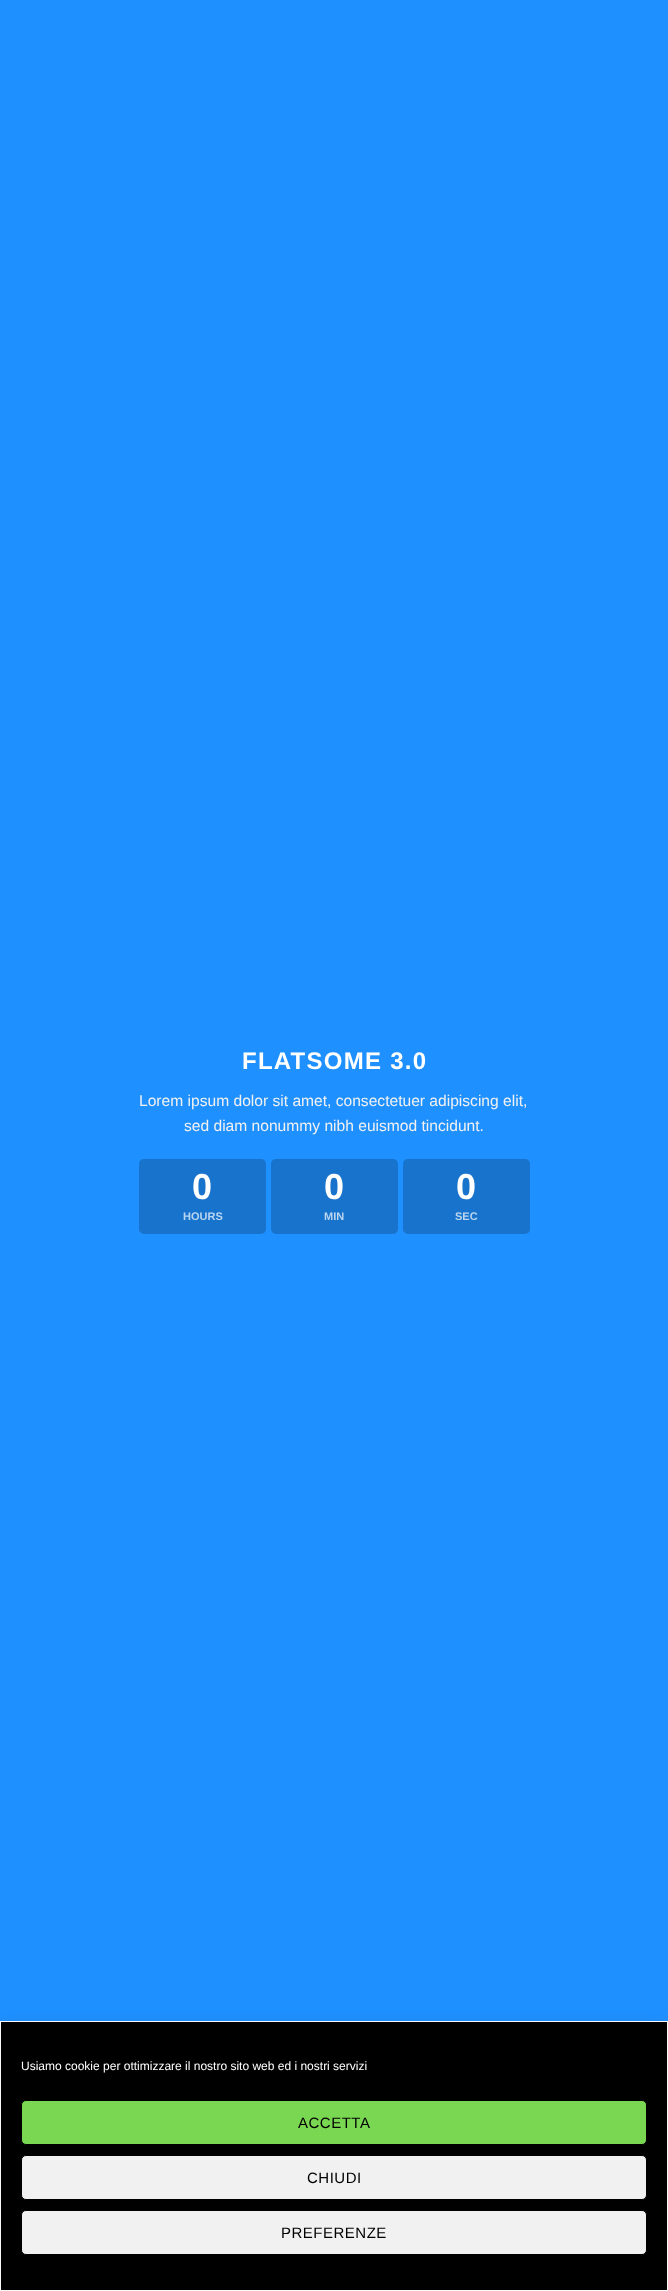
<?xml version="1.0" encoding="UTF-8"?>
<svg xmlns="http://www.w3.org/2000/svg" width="668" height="2291">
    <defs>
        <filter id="blur1" x="-50%" y="-200%" width="200%" height="500%"><feGaussianBlur stdDeviation="10"/></filter>
    </defs>
    <rect width="100%" height="100%" fill="#1E90FF"/>
    <text x="242" y="1069" font-family="Liberation Sans" font-size="24" font-weight="700" letter-spacing="1.25" fill="#FFFFFF">FLATSOME 3.0</text>
    <text x="139" y="1106" font-family="Liberation Sans" font-size="15.6" fill="#F1F1F1">Lorem ipsum dolor sit amet, consectetuer adipiscing elit,</text>
    <text x="184" y="1131" font-family="Liberation Sans" font-size="15.6" fill="#F1F1F1">sed diam nonummy nibh euismod tincidunt.</text>
    <rect x="139" y="1159" width="127" height="75" rx="5" fill="#1873CC"/>
    <text x="192" y="1199" font-family="Liberation Sans" font-size="36" font-weight="700" fill="#FFFFFF">0</text>
    <text x="183" y="1220" font-family="Liberation Sans" font-size="11" font-weight="700" fill="#BAD5F0">HOURS</text>
    <rect x="271" y="1159" width="127" height="75" rx="5" fill="#1873CC"/>
    <text x="324" y="1199" font-family="Liberation Sans" font-size="36" font-weight="700" fill="#FFFFFF">0</text>
    <text x="324" y="1220" font-family="Liberation Sans" font-size="11" font-weight="700" fill="#BAD5F0">MIN</text>
    <rect x="403" y="1159" width="127" height="75" rx="5" fill="#1873CC"/>
    <text x="456" y="1199" font-family="Liberation Sans" font-size="36" font-weight="700" fill="#FFFFFF">0</text>
    <text x="455" y="1220" font-family="Liberation Sans" font-size="11" font-weight="700" fill="#BAD5F0">SEC</text>
    <rect x="0" y="2031" width="668" height="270" fill="#000000" fill-opacity="0.19" filter="url(#blur1)"/>
    <rect x="0.5" y="2021.5" width="667" height="269" fill="#000000" stroke="#F9F9F9"/>
    <text x="21" y="2070" font-family="Liberation Sans" font-size="12" fill="#FFFFFF">Usiamo cookie per ottimizzare il nostro sito web ed i nostri servizi</text>
    <rect x="21.5" y="2100.5" width="625" height="44" rx="4.5" fill="#7AD752" stroke="#000000"/>
    <text x="298" y="2128" font-family="Liberation Sans" font-size="15" letter-spacing="0.5" fill="#000000">ACCETTA</text>
    <rect x="21.5" y="2155.5" width="625" height="44" rx="4.5" fill="#F1F1F1" stroke="#000000"/>
    <text x="307" y="2183" font-family="Liberation Sans" font-size="15" letter-spacing="0.5" fill="#000000">CHIUDI</text>
    <rect x="21.5" y="2210.5" width="625" height="44" rx="4.5" fill="#F1F1F1" stroke="#000000"/>
    <text x="281" y="2238" font-family="Liberation Sans" font-size="15" letter-spacing="0.5" fill="#000000">PREFERENZE</text>
</svg>
